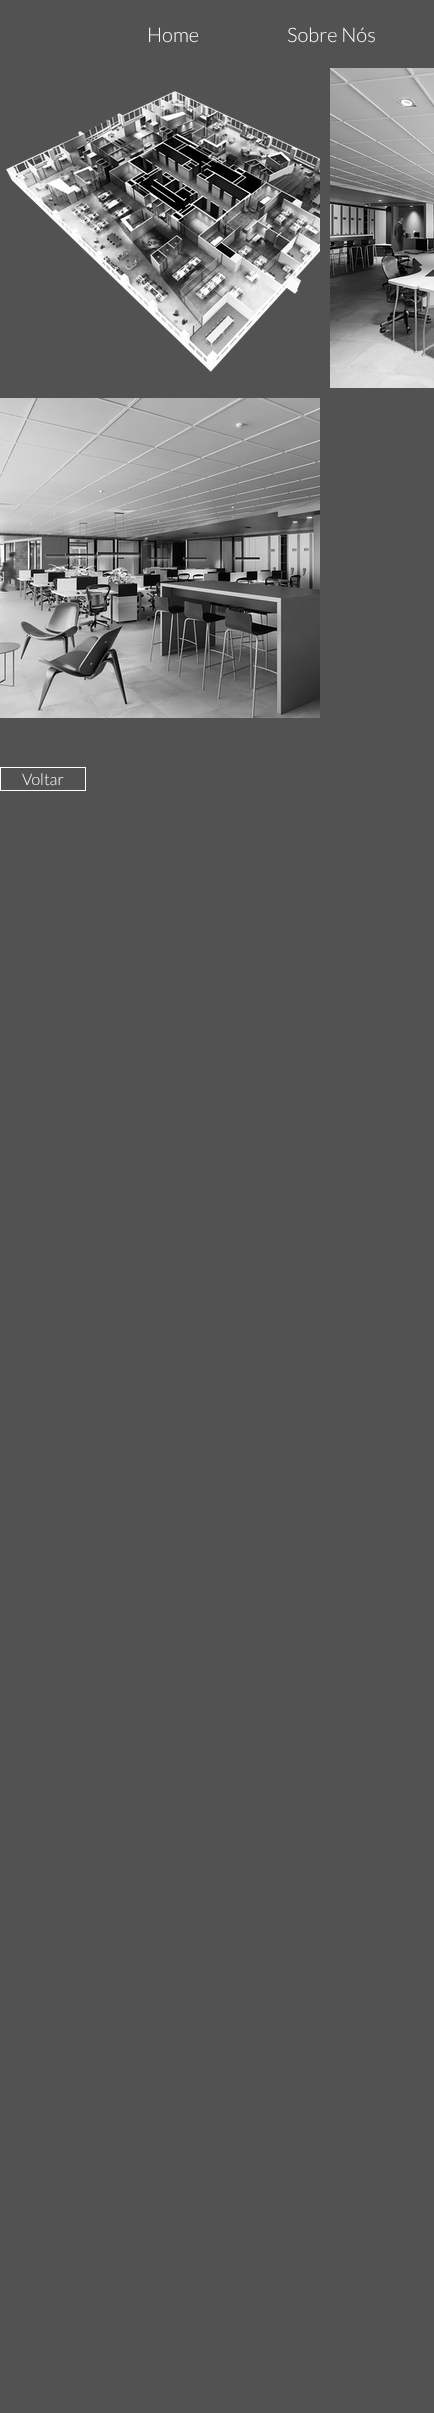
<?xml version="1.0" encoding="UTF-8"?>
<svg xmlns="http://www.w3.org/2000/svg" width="434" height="2413">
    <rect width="100%" height="100%" fill="#525252"/>
    <text x="147" y="42" font-family="Lato" font-size="20" font-weight="300" fill="#FFFFFF">Home</text>
    <text x="287" y="42" font-family="Lato" font-size="20" font-weight="300" fill="#FFFFFF">Sobre Nós</text>
    <image x="6" y="91" width="314" height="281" href="img_01.png"/>
    <image x="330" y="68" width="104" height="320" href="img_02.png"/>
    <image x="0" y="398" width="320" height="320" href="img_03.png"/>
    <rect x="0.5" y="767.5" width="85" height="23" fill="none" stroke="#FFFFFF"/>
    <text x="22" y="785" font-family="Lato" font-size="16" font-weight="300" fill="#FFFFFF">Voltar</text>
</svg>
